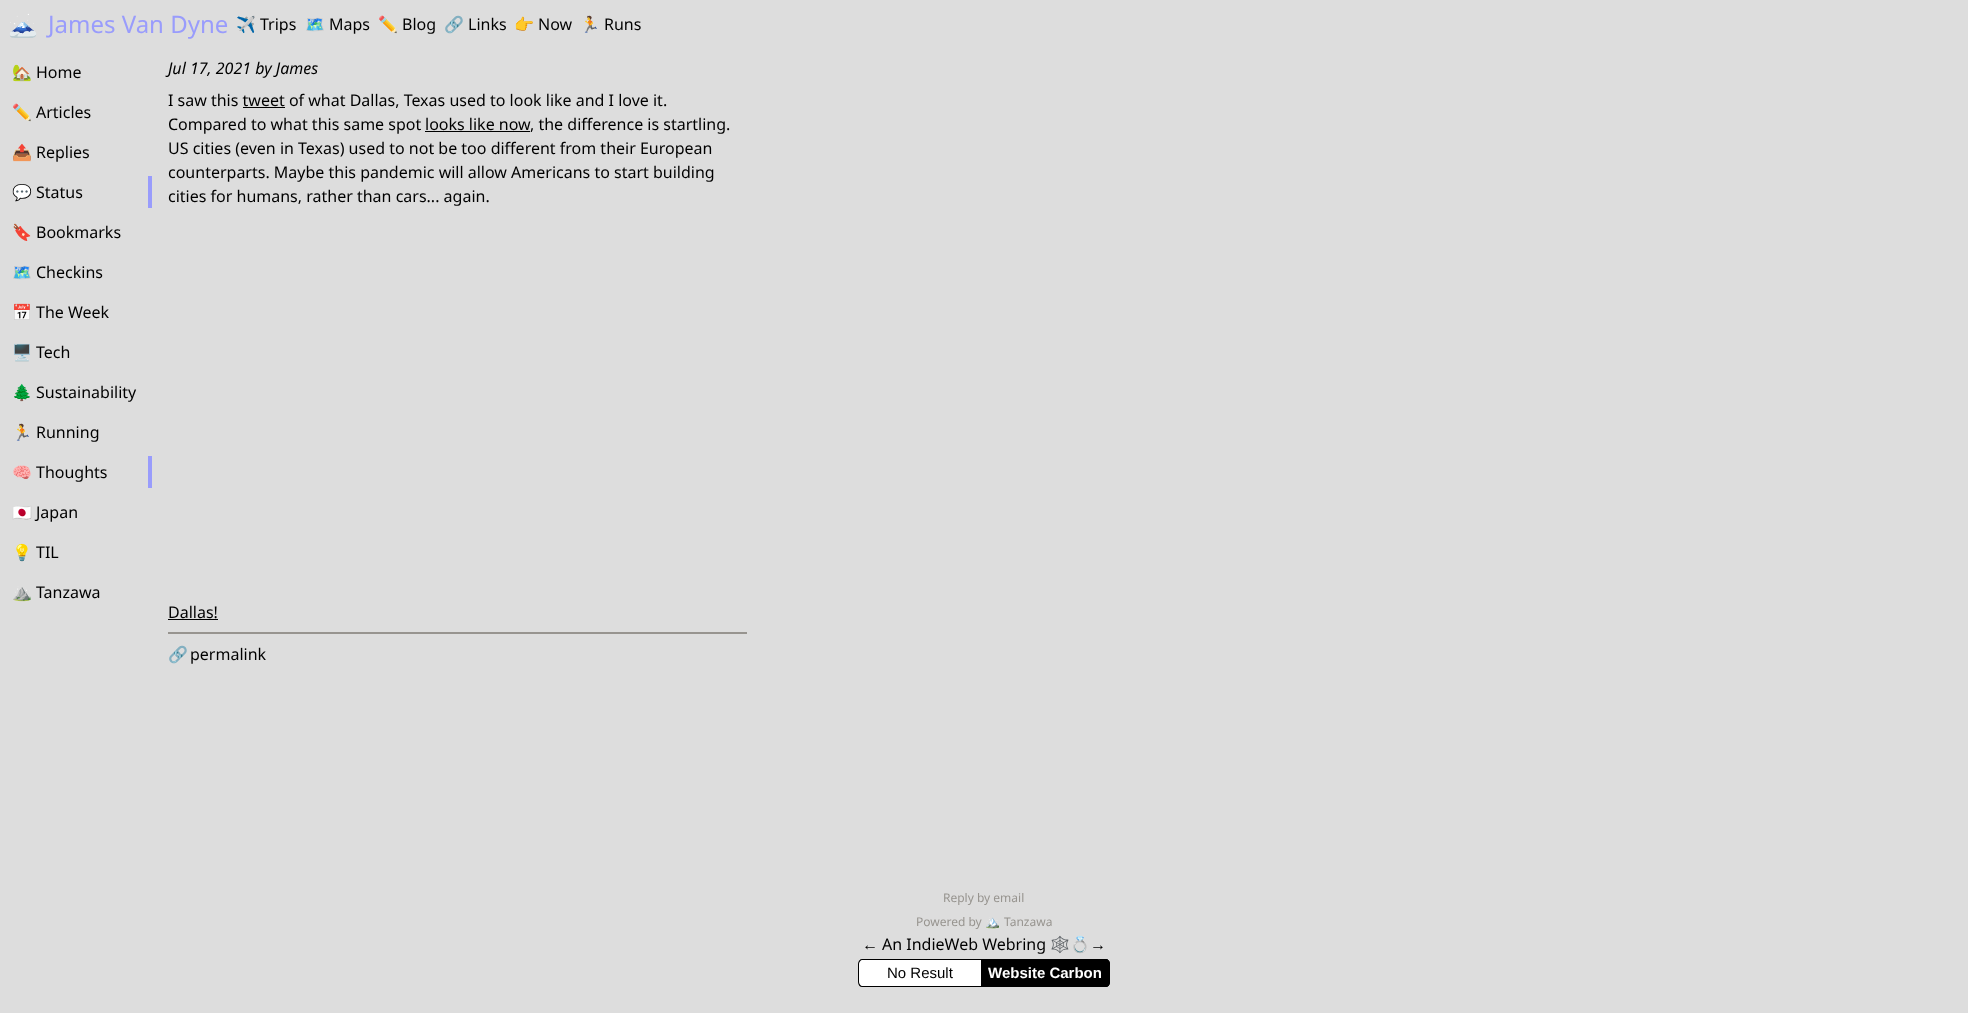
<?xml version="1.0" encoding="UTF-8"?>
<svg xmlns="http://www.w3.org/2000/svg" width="1968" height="1013">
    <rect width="100%" height="100%" fill="#DDDDDD"/>
    <text x="8" y="33" font-family="Noto Color Emoji" font-size="24" fill="#999CFC">🗻</text>
    <text x="48" y="33" font-family="Noto Sans" font-size="24" fill="#999CFC">James Van Dyne</text>
    <text x="236" y="30" font-family="Noto Color Emoji" font-size="16" fill="#000000">✈️</text>
    <text x="260" y="30" font-family="Noto Sans" font-size="16" fill="#000000">Trips</text>
    <text x="305" y="30" font-family="Noto Color Emoji" font-size="16" fill="#000000">🗺️</text>
    <text x="329" y="30" font-family="Noto Sans" font-size="16" fill="#000000">Maps</text>
    <text x="378" y="30" font-family="Noto Color Emoji" font-size="16" fill="#000000">✏️️</text>
    <text x="402" y="30" font-family="Noto Sans" font-size="16" fill="#000000">Blog</text>
    <text x="444" y="30" font-family="Noto Color Emoji" font-size="16" fill="#000000">🔗️️</text>
    <text x="468" y="30" font-family="Noto Sans" font-size="16" fill="#000000">Links</text>
    <text x="514" y="30" font-family="Noto Color Emoji" font-size="16" fill="#000000">👉</text>
    <text x="538" y="30" font-family="Noto Sans" font-size="16" fill="#000000">Now</text>
    <text x="580" y="30" font-family="Noto Color Emoji" font-size="16" fill="#000000">🏃</text>
    <text x="604" y="30" font-family="Noto Sans" font-size="16" fill="#000000">Runs</text>
    <text x="12" y="78" font-family="Noto Color Emoji" font-size="16" fill="#000000">🏡</text>
    <text x="36" y="78" font-family="Noto Sans" font-size="16" fill="#000000">Home</text>
    <text x="12" y="118" font-family="Noto Color Emoji" font-size="16" fill="#000000">✏️</text>
    <text x="36" y="118" font-family="Noto Sans" font-size="16" fill="#000000">Articles</text>
    <text x="12" y="158" font-family="Noto Color Emoji" font-size="16" fill="#000000">📤️</text>
    <text x="36" y="158" font-family="Noto Sans" font-size="16" fill="#000000">Replies</text>
    <rect x="148" y="176" width="4" height="32" fill="#999CFC"/>
    <text x="12" y="198" font-family="Noto Color Emoji" font-size="16" fill="#000000">💬</text>
    <text x="36" y="198" font-family="Noto Sans" font-size="16" fill="#000000">Status</text>
    <text x="12" y="238" font-family="Noto Color Emoji" font-size="16" fill="#000000">🔖️️</text>
    <text x="36" y="238" font-family="Noto Sans" font-size="16" fill="#000000">Bookmarks</text>
    <text x="12" y="278" font-family="Noto Color Emoji" font-size="16" fill="#000000">🗺</text>
    <text x="36" y="278" font-family="Noto Sans" font-size="16" fill="#000000">Checkins</text>
    <text x="12" y="318" font-family="Noto Color Emoji" font-size="16" fill="#000000">📅</text>
    <text x="36" y="318" font-family="Noto Sans" font-size="16" fill="#000000">The Week</text>
    <text x="12" y="358" font-family="Noto Color Emoji" font-size="16" fill="#000000">🖥</text>
    <text x="36" y="358" font-family="Noto Sans" font-size="16" fill="#000000">Tech</text>
    <text x="12" y="398" font-family="Noto Color Emoji" font-size="16" fill="#000000">🌲</text>
    <text x="36" y="398" font-family="Noto Sans" font-size="16" fill="#000000">Sustainability</text>
    <text x="12" y="438" font-family="Noto Color Emoji" font-size="16" fill="#000000">🏃</text>
    <text x="36" y="438" font-family="Noto Sans" font-size="16" fill="#000000">Running</text>
    <rect x="148" y="456" width="4" height="32" fill="#999CFC"/>
    <text x="12" y="478" font-family="Noto Color Emoji" font-size="16" fill="#000000">🧠</text>
    <text x="36" y="478" font-family="Noto Sans" font-size="16" fill="#000000">Thoughts</text>
    <text x="12" y="518" font-family="Noto Color Emoji" font-size="16" fill="#000000">🇯🇵</text>
    <text x="36" y="518" font-family="Noto Sans" font-size="16" fill="#000000">Japan</text>
    <text x="12" y="558" font-family="Noto Color Emoji" font-size="16" fill="#000000">💡</text>
    <text x="36" y="558" font-family="Noto Sans" font-size="16" fill="#000000">TIL</text>
    <text x="12" y="598" font-family="Noto Color Emoji" font-size="16" fill="#000000">⛰</text>
    <text x="36" y="598" font-family="Noto Sans" font-size="16" fill="#000000">Tanzawa</text>
    <text x="168" y="74" font-family="Noto Sans" font-size="16" font-style="italic" fill="#000000">Jul 17, 2021 by James</text>
    <text x="168" y="106" font-family="Noto Sans" font-size="16" fill="#000000">I saw this tweet of what Dallas, Texas used to look like and I love it.</text>
    <rect x="243" y="107" width="42" height="1" fill="#000000"/>
    <text x="168" y="130" font-family="Noto Sans" font-size="16" fill="#000000">Compared to what this same spot</text>
    <text x="425" y="130" font-family="Noto Sans" font-size="16" fill="#000000">looks like now</text>
    <rect x="425" y="131" width="105" height="1" fill="#000000"/>
    <text x="530" y="130" font-family="Noto Sans" font-size="16" fill="#000000">, the difference is startling.</text>
    <text font-family="Noto Sans" font-size="16" fill="#000000">
        <tspan x="168" y="154">US cities (even in Texas) used to not be too different from their European</tspan>
        <tspan x="168" y="178">counterparts. Maybe this pandemic will allow Americans to start building</tspan>
        <tspan x="168" y="202">cities for humans, rather than cars... again.</tspan>
    </text>
    <text x="168" y="618" font-family="Noto Sans" font-size="16" fill="#000000">Dallas!</text>
    <rect x="168" y="619" width="50" height="1" fill="#000000"/>
    <rect x="168" y="632" width="579" height="2" fill="#97948F"/>
    <text x="168" y="660" font-family="Noto Color Emoji" font-size="16" fill="#000000">🔗</text>
    <text x="190" y="660" font-family="Noto Sans" font-size="16" fill="#000000">permalink</text>
    <text x="943" y="902" font-family="Noto Sans" font-size="12" fill="#97948F">Reply by email</text>
    <text x="916" y="926" font-family="Noto Sans" font-size="12" fill="#97948F">Powered by</text>
    <text x="985" y="926" font-family="Noto Color Emoji" font-size="12" fill="#97948F">🏔</text>
    <text x="1004" y="926" font-family="Noto Sans" font-size="12" fill="#97948F">Tanzawa</text>
    <text x="862" y="950" font-family="Liberation Sans" font-size="16" fill="#000000">←</text>
    <text x="882" y="950" font-family="Noto Sans" font-size="16" fill="#000000">An IndieWeb Webring</text>
    <text x="1050" y="950" font-family="Noto Color Emoji" font-size="16" fill="#000000">🕸💍</text>
    <text x="1090" y="950" font-family="Liberation Sans" font-size="16" fill="#000000">→</text>
    <path d="M 863 959 H 981 V 987 H 863 C 860 987 858 985 858 982 V 964 C 858 961 860 959 863 959 Z" fill="#FFFFFF"/>
    <path d="M 862 959 H 981 V 987 H 862 C 860 987 858 985 858 982 V 964 C 858 961 860 959 862 959 Z M 862 960 H 981 V 986 H 862 C 861 986 859 984 859 982 V 964 C 859 962 861 960 862 960 Z" fill="#000000" fill-rule="evenodd"/>
    <text x="887" y="978" font-family="Liberation Sans" font-size="15" fill="#000000">No Result</text>
    <path d="M 981 959 H 1105 C 1108 959 1110 961 1110 964 V 982 C 1110 985 1108 987 1105 987 H 981 Z" fill="#000000"/>
    <path d="M 981 959 H 1106 C 1108 959 1110 961 1110 964 V 982 C 1110 985 1108 987 1106 987 H 981 Z M 981 960 H 1106 C 1107 960 1109 962 1109 964 V 982 C 1109 984 1107 986 1106 986 H 981 Z" fill="#000000" fill-rule="evenodd"/>
    <text x="988" y="978" font-family="Liberation Sans" font-size="15" font-weight="700" fill="#FFFFFF">Website Carbon</text>
</svg>
